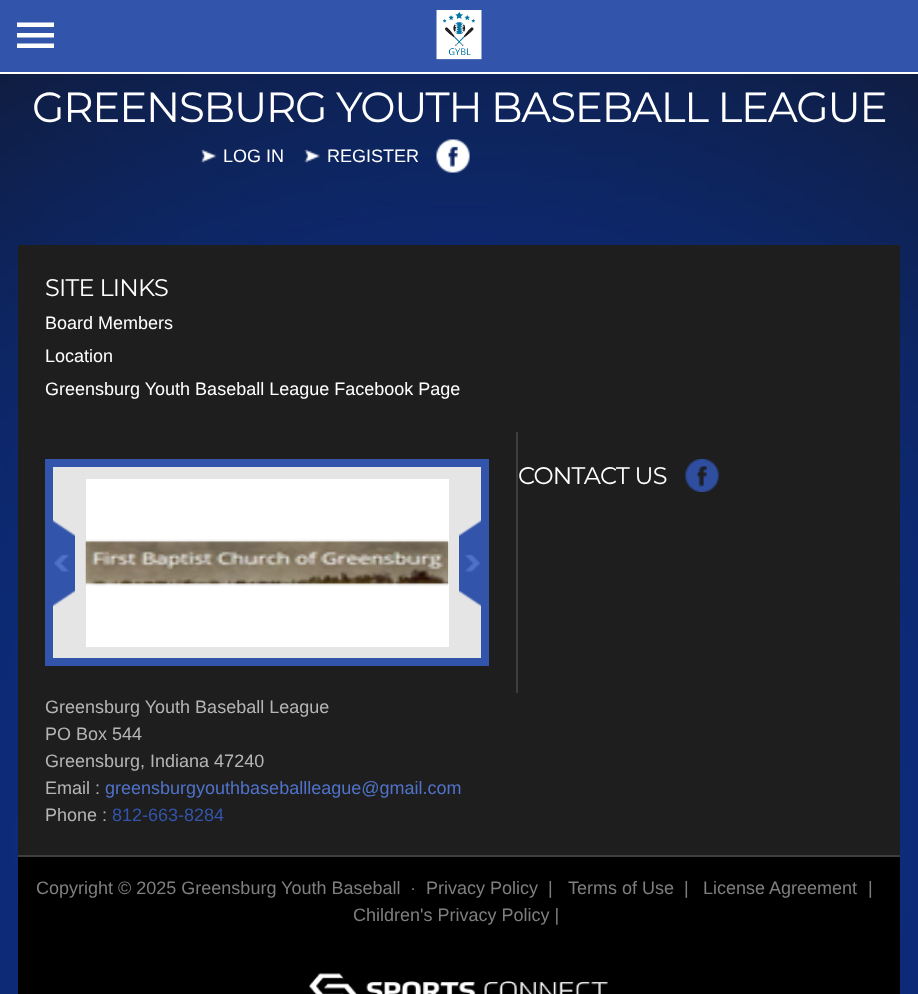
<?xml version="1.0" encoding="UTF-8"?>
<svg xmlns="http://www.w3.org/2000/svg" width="918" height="994">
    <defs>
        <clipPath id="clip1"><rect x="17" y="17" width="37" height="37"/></clipPath>
    </defs>
    <rect width="100%" height="100%" fill="#FFFFFF"/>
    <rect x="0" y="0" width="918" height="72" fill="#3254AB"/>
    <g clip-path="url(#clip1)">
        <path d="M 16.5 22.5 H 54 V 27 H 16.5 Z M 16.5 33 H 54 V 37.5 H 16.5 Z M 16.5 43.5 H 54 V 48 H 16.5 Z" fill="#FFFFFF"/>
    </g>
    <image x="436" y="10" width="46" height="50" href="img_01.png"/>
    <image x="0" y="74" width="918" height="920" href="img_02.png"/>
    <text x="32" y="122" font-family="Montserrat" font-size="42" letter-spacing="-1.25" fill="#FFFFFF">GREENSBURG YOUTH BASEBALL LEAGUE</text>
    <image x="201" y="149" width="16" height="14" href="img_03.png"/>
    <text x="223" y="162" font-family="Liberation Sans" font-size="18" fill="#FFFFFF">LOG IN</text>
    <image x="304" y="149" width="16" height="14" href="img_04.png"/>
    <text x="327" y="162" font-family="Liberation Sans" font-size="18" fill="#FFFFFF">REGISTER</text>
    <image x="436" y="139" width="34" height="34" href="img_05.png"/>
    <rect x="18" y="245" width="882" height="610" fill="#1E1E1E"/>
    <text x="45" y="296" font-family="Montserrat" font-size="24" letter-spacing="-0.75" fill="#FFFFFF">SITE LINKS</text>
    <text font-family="Liberation Sans" font-size="18" fill="#FFFFFF">
        <tspan x="45" y="329">Board Members</tspan>
        <tspan x="45" y="362">Location</tspan>
        <tspan x="45" y="395">Greensburg Youth Baseball League Facebook Page</tspan>
    </text>
    <rect x="516" y="432" width="2" height="261" fill="#3E3E3E"/>
    <rect x="49" y="463" width="436" height="199" fill="#E5E5E5" stroke="#3254AB" stroke-width="8"/>
    <image x="53" y="520" width="22" height="86" href="img_06.png"/>
    <rect x="86" y="479" width="363" height="168" fill="#FFFFFF"/>
    <image x="85" y="539" width="364" height="47" href="img_07.png"/>
    <image x="459" y="520" width="22" height="86" href="img_08.png"/>
    <text x="518" y="484" font-family="Montserrat" font-size="24" letter-spacing="-0.75" fill="#FFFFFF">CONTACT US</text>
    <image x="685" y="459" width="34" height="33" href="img_09.png"/>
    <text font-family="Liberation Sans" font-size="18" fill="#B5B5B5">
        <tspan x="45" y="713">Greensburg Youth Baseball League</tspan>
        <tspan x="45" y="740">PO Box 544</tspan>
        <tspan x="45" y="767">Greensburg, Indiana 47240</tspan>
        <tspan x="45" y="794">Email :</tspan>
    </text>
    <text x="105" y="794" font-family="Liberation Sans" font-size="18" fill="#5072C9">greensburgyouthbaseballleague@gmail.com</text>
    <text x="45" y="821" font-family="Liberation Sans" font-size="18" fill="#B5B5B5">Phone :</text>
    <text x="112" y="821" font-family="Liberation Sans" font-size="18" fill="#3254AB">812-663-8284</text>
    <rect x="18" y="857" width="882" height="137" fill="#000000"/>
    <rect x="18" y="855" width="882" height="2" fill="#3E3E3E"/>
    <text x="36" y="894" font-family="Liberation Sans" font-size="18" fill="#7F7F7F">Copyright © 2025 Greensburg Youth Baseball</text>
    <text x="410" y="894" font-family="Liberation Sans" font-size="18" fill="#7F7F7F">·</text>
    <text x="426" y="894" font-family="Liberation Sans" font-size="18" fill="#7F7F7F">Privacy Policy</text>
    <text x="548" y="894" font-family="Liberation Sans" font-size="18" fill="#7F7F7F">|</text>
    <text x="568" y="894" font-family="Liberation Sans" font-size="18" fill="#7F7F7F">Terms of Use</text>
    <text x="684" y="894" font-family="Liberation Sans" font-size="18" fill="#7F7F7F">|</text>
    <text x="703" y="894" font-family="Liberation Sans" font-size="18" fill="#7F7F7F">License Agreement</text>
    <text x="868" y="894" font-family="Liberation Sans" font-size="18" fill="#7F7F7F">|</text>
    <text x="353" y="921" font-family="Liberation Sans" font-size="18" fill="#7F7F7F">Children's Privacy Policy |</text>
    <image x="309" y="973" width="299" height="21" href="img_10.png"/>
</svg>
